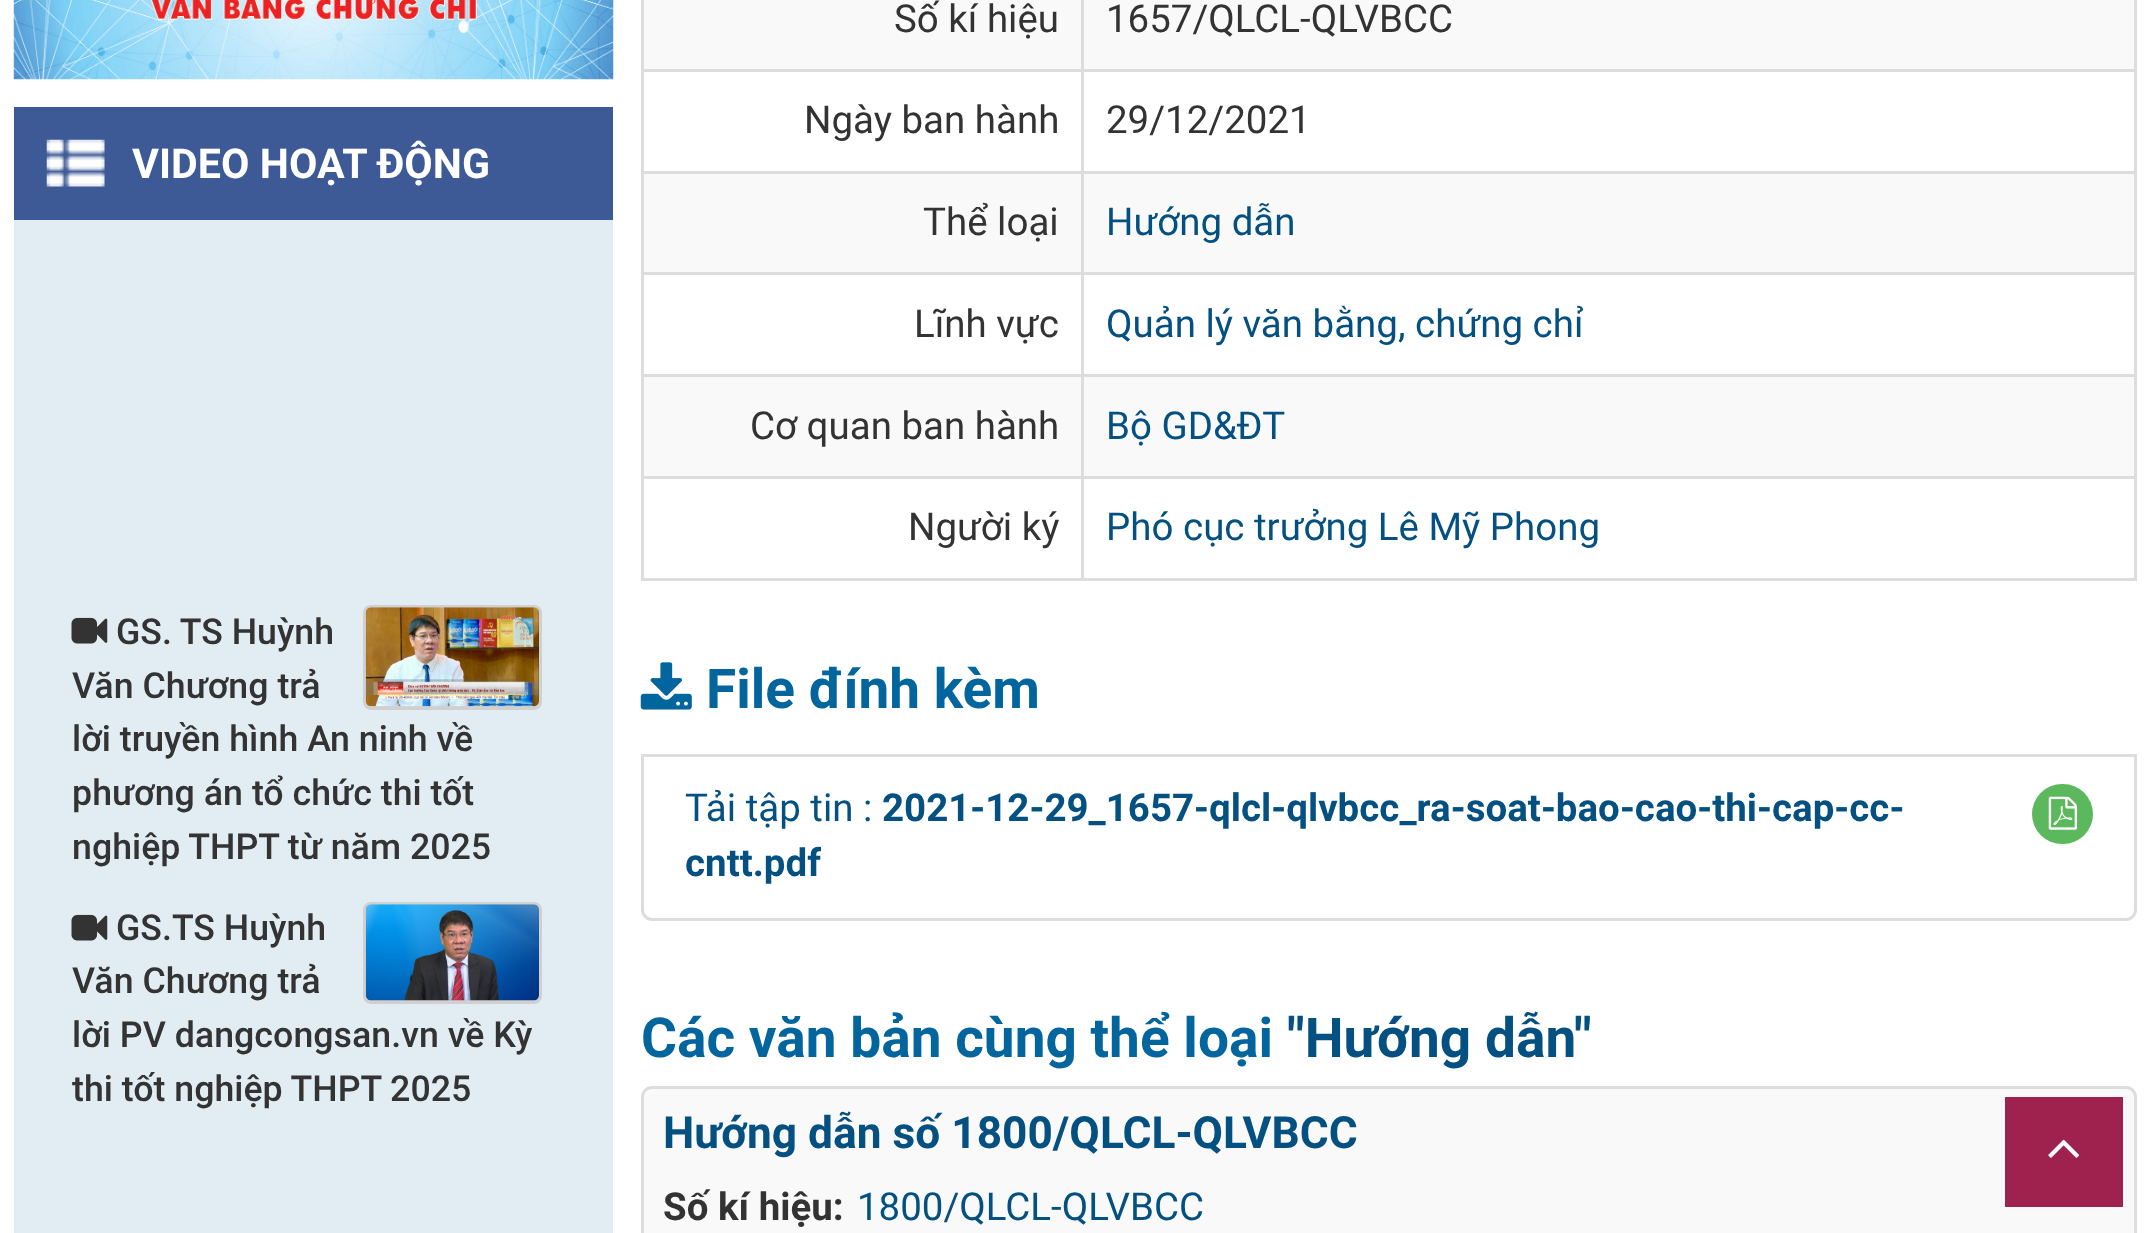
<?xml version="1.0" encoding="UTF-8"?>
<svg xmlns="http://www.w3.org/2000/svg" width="2149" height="1233">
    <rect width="100%" height="100%" fill="#FFFFFF"/>
    <image x="13" y="0" width="601" height="80" href="img_01.png"/>
    <rect x="14" y="107" width="599" height="113" fill="#3D5A96"/>
    <image x="46" y="139" width="59" height="48" href="img_02.png"/>
    <text x="132" y="178" font-family="Roboto" font-size="41.25" font-weight="700" fill="#FFFFFF">VIDEO HOẠT ĐỘNG</text>
    <rect x="14" y="220" width="599" height="1013" fill="#E1EDF3"/>
    <image x="71" y="617" width="37" height="27" href="img_03.png"/>
    <text x="116" y="644" font-family="Roboto" font-size="35.75" font-weight="500" fill="#333333">GS. TS Huỳnh</text>
    <rect x="363" y="605" width="179" height="105" rx="8" fill="#D0D0D0"/>
    <image x="365" y="607" width="174" height="100" href="img_04.png"/>
    <text font-family="Roboto" font-size="35.75" font-weight="500" fill="#333333">
        <tspan x="72" y="698">Văn Chương trả</tspan>
        <tspan x="72" y="751">lời truyền hình An ninh về</tspan>
        <tspan x="72" y="805">phương án tổ chức thi tốt</tspan>
        <tspan x="72" y="859">nghiệp THPT từ năm 2025</tspan>
    </text>
    <image x="71" y="914" width="37" height="27" href="img_03.png"/>
    <text x="116" y="940" font-family="Roboto" font-size="35.75" font-weight="500" fill="#333333">GS.TS Huỳnh</text>
    <rect x="363" y="902" width="179" height="102" rx="8" fill="#D0D0D0"/>
    <image x="365" y="904" width="174" height="97" href="img_05.png"/>
    <text font-family="Roboto" font-size="35.75" font-weight="500" fill="#333333">
        <tspan x="72" y="993">Văn Chương trả</tspan>
        <tspan x="72" y="1047">lời PV dangcongsan.vn về Kỳ</tspan>
        <tspan x="72" y="1101">thi tốt nghiệp THPT 2025</tspan>
    </text>
    <rect x="2134" y="0" width="3" height="580" fill="#DDDDDD"/>
    <rect x="641" y="578" width="1496" height="3" fill="#DDDDDD"/>
    <rect x="641" y="0" width="3" height="580" fill="#DDDDDD"/>
    <rect x="644" y="0" width="1490" height="69" fill="#F9F9F9"/>
    <text x="894" y="32" font-family="Roboto" font-size="38.5" fill="#333333">Số kí hiệu</text>
    <rect x="1081" y="69" width="1056" height="3" fill="#DDDDDD"/>
    <rect x="1081" y="171" width="1056" height="3" fill="#DDDDDD"/>
    <rect x="644" y="174" width="1490" height="98" fill="#F9F9F9"/>
    <rect x="1081" y="272" width="1056" height="3" fill="#DDDDDD"/>
    <rect x="1081" y="374" width="1056" height="3" fill="#DDDDDD"/>
    <rect x="644" y="377" width="1490" height="99" fill="#F9F9F9"/>
    <rect x="1081" y="476" width="1056" height="3" fill="#DDDDDD"/>
    <rect x="1081" y="476" width="3" height="104" fill="#DDDDDD"/>
    <rect x="641" y="476" width="443" height="3" fill="#DDDDDD"/>
    <rect x="1081" y="374" width="3" height="105" fill="#DDDDDD"/>
    <rect x="641" y="374" width="443" height="3" fill="#DDDDDD"/>
    <rect x="1081" y="272" width="3" height="105" fill="#DDDDDD"/>
    <rect x="641" y="272" width="443" height="3" fill="#DDDDDD"/>
    <rect x="1081" y="171" width="3" height="104" fill="#DDDDDD"/>
    <rect x="641" y="171" width="443" height="3" fill="#DDDDDD"/>
    <rect x="1081" y="69" width="3" height="104" fill="#DDDDDD"/>
    <rect x="641" y="69" width="443" height="3" fill="#DDDDDD"/>
    <rect x="1081" y="0" width="3" height="72" fill="#DDDDDD"/>
    <text x="1106" y="32" font-family="Roboto" font-size="38.5" fill="#333333">1657/QLCL-QLVBCC</text>
    <text x="804" y="133" font-family="Roboto" font-size="38.5" fill="#333333">Ngày ban hành</text>
    <text x="1106" y="133" font-family="Roboto" font-size="38.5" fill="#333333">29/12/2021</text>
    <text x="923" y="235" font-family="Roboto" font-size="38.5" fill="#333333">Thể loại</text>
    <text x="1106" y="235" font-family="Roboto" font-size="38.5" fill="#045081">Hướng dẫn</text>
    <text x="914" y="337" font-family="Roboto" font-size="38.5" fill="#333333">Lĩnh vực</text>
    <text x="1106" y="337" font-family="Roboto" font-size="38.5" fill="#045081">Quản lý văn bằng, chứng chỉ</text>
    <text x="750" y="439" font-family="Roboto" font-size="38.5" fill="#333333">Cơ quan ban hành</text>
    <text x="1106" y="439" font-family="Roboto" font-size="38.5" fill="#045081">Bộ GD&amp;ĐT</text>
    <text x="908" y="540" font-family="Roboto" font-size="38.5" fill="#333333">Người ký</text>
    <text x="1106" y="540" font-family="Roboto" font-size="38.5" fill="#045081">Phó cục trưởng Lê Mỹ Phong</text>
    <image x="640" y="662" width="52" height="48" href="img_06.png"/>
    <text x="706" y="708" font-family="Roboto" font-size="55" font-weight="700" fill="#02659D">File đính kèm</text>
    <path d="M 642.5 755.5 H 2135.5 V 910 C 2135.5 915 2131 919.5 2126 919.5 H 652 C 647 919.5 642.5 915 642.5 910 Z" fill="none" stroke="#DDDDDD" stroke-width="3"/>
    <text x="685" y="821" font-family="Roboto" font-size="38.5" fill="#045081">Tải tập tin :</text>
    <text x="882" y="821" font-family="Roboto" font-size="38.5" font-weight="700" fill="#045081">2021-12-29_1657-qlcl-qlvbcc_ra-soat-bao-cao-thi-cap-cc-</text>
    <rect x="2032" y="784" width="61" height="60" rx="30" fill="#5CB85C"/>
    <image x="2048" y="796" width="30" height="34" href="img_07.png"/>
    <text x="685" y="876" font-family="Roboto" font-size="38.5" font-weight="700" fill="#045081">cntt.pdf</text>
    <text x="641" y="1057" font-family="Roboto" font-size="55" font-weight="700" fill="#02659D">Các văn bản cùng thể loại</text>
    <text x="1287" y="1057" font-family="Roboto" font-size="55" font-weight="700" fill="#045081">"Hướng dẫn"</text>
    <rect x="642.5" y="1087.5" width="1493" height="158" rx="9.5" fill="#F9F9F9" stroke="#DDDDDD" stroke-width="3"/>
    <text x="663" y="1148" font-family="Roboto" font-size="44.25" font-weight="700" fill="#045081">Hướng dẫn số 1800/QLCL-QLVBCC</text>
    <text x="663" y="1220" font-family="Roboto" font-size="38.5" font-weight="700" fill="#333333">Số kí hiệu:</text>
    <text x="857" y="1220" font-family="Roboto" font-size="38.5" fill="#045081">1800/QLCL-QLVBCC</text>
    <rect x="2005" y="1097" width="118" height="110" fill="#9F224E"/>
    <image x="2048" y="1139" width="31" height="19" href="img_08.png"/>
</svg>
